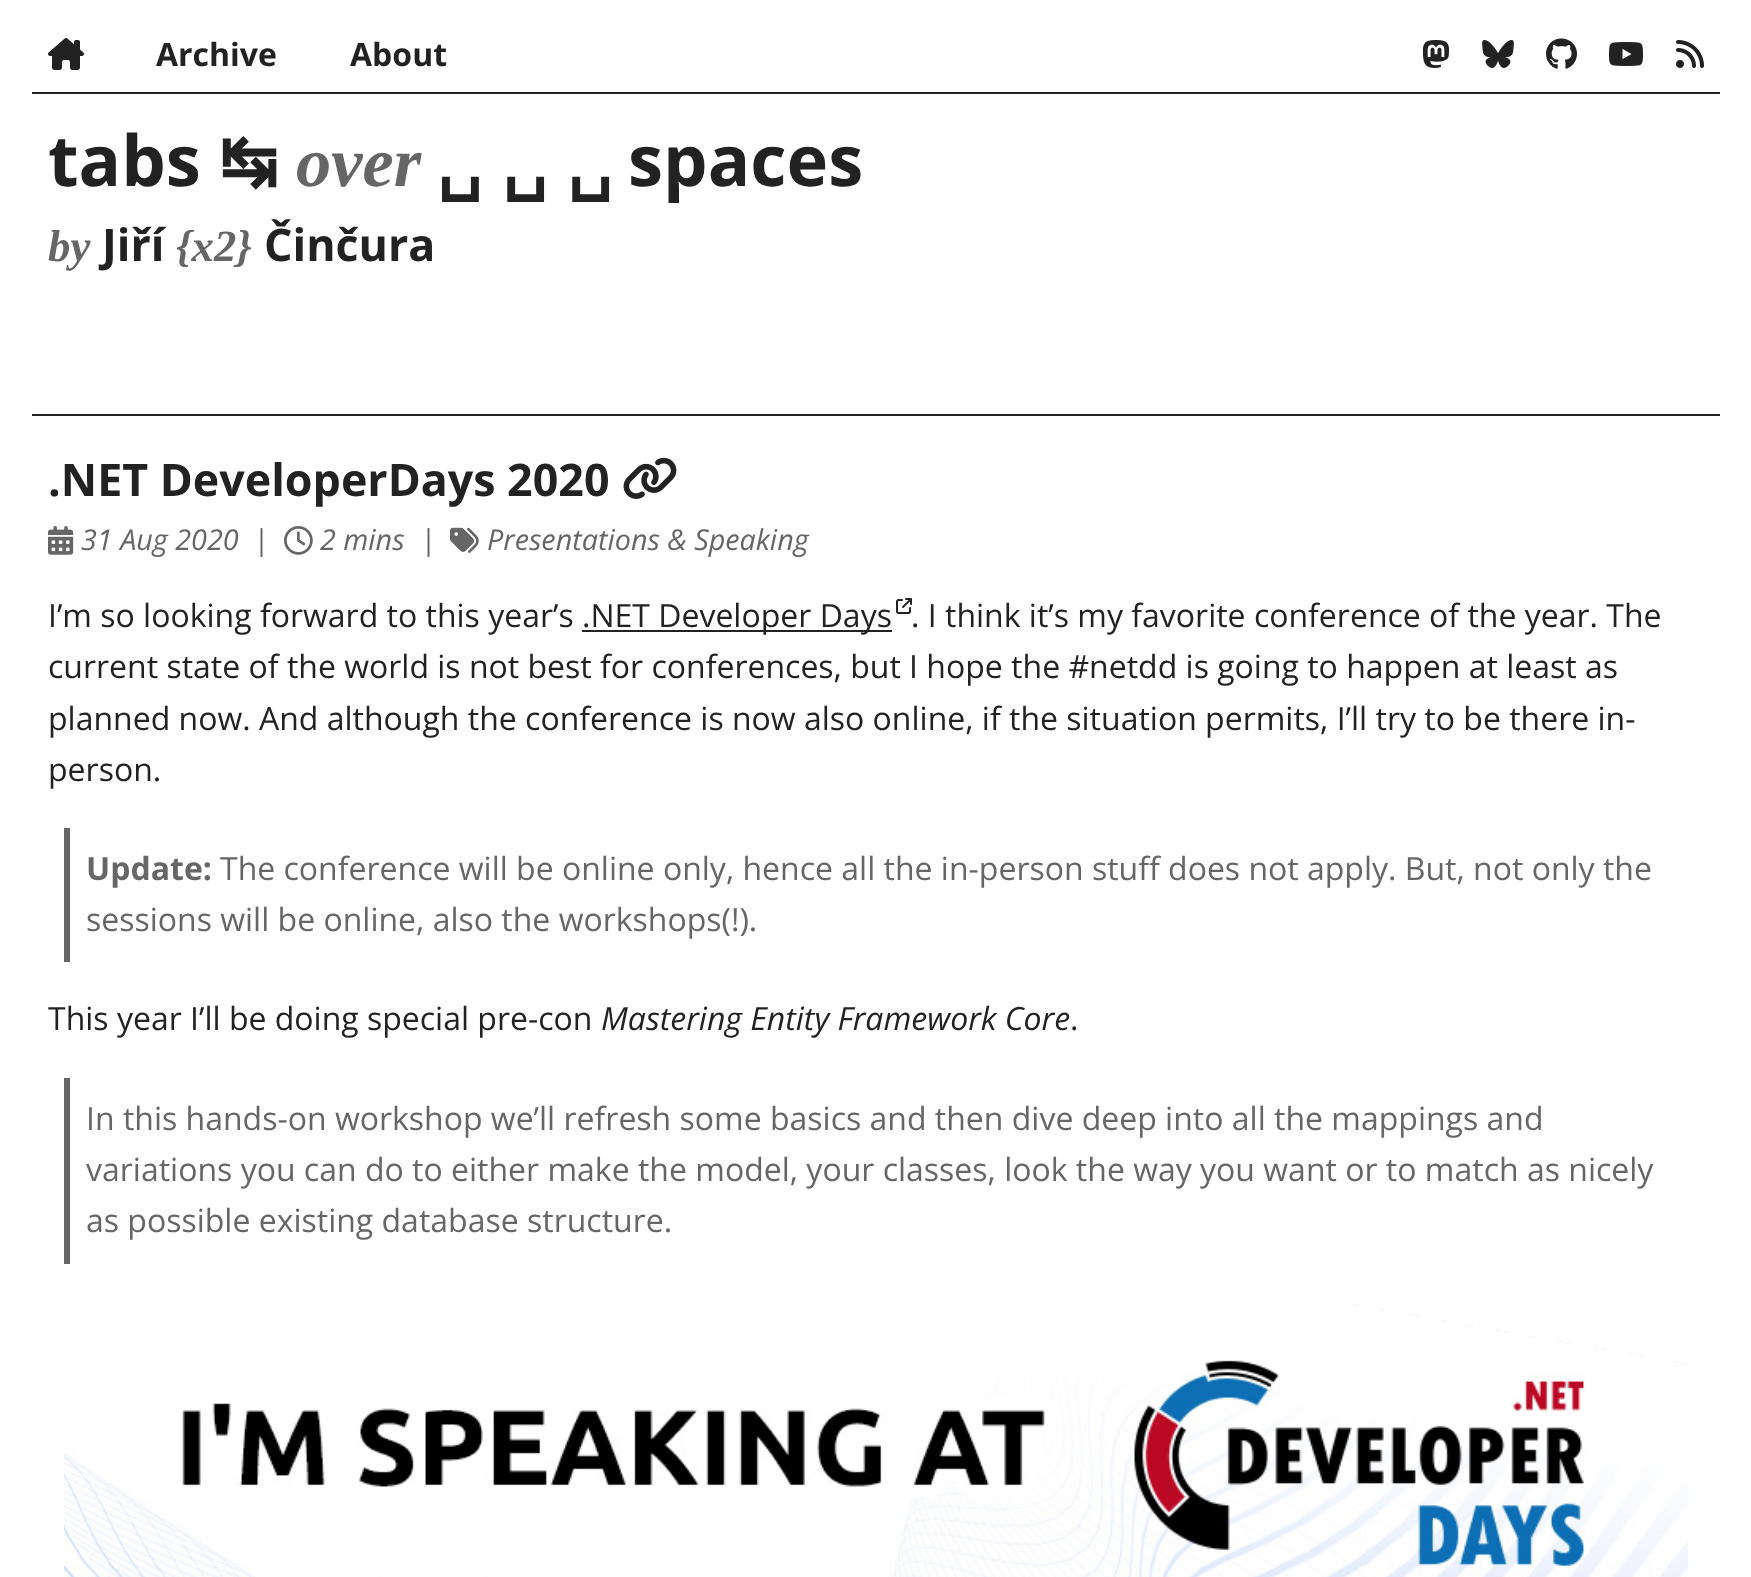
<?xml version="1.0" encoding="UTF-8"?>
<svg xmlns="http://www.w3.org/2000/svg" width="1751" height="1577">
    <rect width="100%" height="100%" fill="#FFFFFF"/>
    <rect x="32" y="92" width="1688" height="2" fill="#222222"/>
    <image x="48" y="38" width="36" height="32" href="img_01.png"/>
    <text x="156" y="66" font-family="Open Sans" font-size="32" font-weight="700" fill="#222222">Archive</text>
    <text x="350" y="66" font-family="Open Sans" font-size="32" font-weight="700" fill="#222222">About</text>
    <image x="1422" y="40" width="28" height="28" href="img_02.png"/>
    <image x="1482" y="40" width="32" height="28" href="img_03.png"/>
    <image x="1546" y="38" width="31" height="31" href="img_04.png"/>
    <image x="1608" y="42" width="36" height="24" href="img_05.png"/>
    <image x="1676" y="40" width="28" height="28" href="img_06.png"/>
    <rect x="32" y="414" width="1688" height="2" fill="#222222"/>
    <text x="48" y="186" font-family="Open Sans" font-size="70.5" font-weight="700" fill="#222222">tabs</text>
    <text x="219" y="186" font-family="DejaVu Sans" font-size="70.5" font-weight="700" fill="#222222">↹</text>
    <text x="296" y="186" font-family="Liberation Serif" font-size="70.5" font-weight="700" font-style="italic" fill="#666666">over</text>
    <text x="628" y="186" font-family="Open Sans" font-size="70.5" font-weight="700" fill="#222222">spaces</text>
    <text x="437" y="186" word-spacing="-2" font-family="DejaVu Sans" font-size="70.5" font-weight="700" fill="#222222">␣ ␣ ␣</text>
    <text x="48" y="261" font-family="Liberation Serif" font-size="44.75" font-weight="700" font-style="italic" fill="#666666">by</text>
    <text x="102" y="261" font-family="Open Sans" font-size="44.75" font-weight="700" fill="#222222">Jiří</text>
    <text x="176" y="261" font-family="Liberation Serif" font-size="44.75" font-weight="700" font-style="italic" fill="#666666">{x2}</text>
    <text x="264" y="261" font-family="Open Sans" font-size="44.75" font-weight="700" fill="#222222">Činčura</text>
    <text x="48" y="496" font-family="Open Sans" font-size="44.75" font-weight="700" fill="#222222">.NET DeveloperDays 2020</text>
    <image x="623" y="457" width="54" height="42" href="img_07.png"/>
    <image x="48" y="526" width="26" height="29" href="img_08.png"/>
    <text x="81" y="550" font-family="Open Sans" font-size="28.75" font-style="italic" fill="#666666">31 Aug 2020</text>
    <text x="253" y="550" font-family="Open Sans" font-size="28.75" font-style="italic" fill="#666666">|</text>
    <image x="284" y="526" width="29" height="29" href="img_09.png"/>
    <text x="320" y="550" font-family="Open Sans" font-size="28.75" font-style="italic" fill="#666666">2 mins</text>
    <text x="420" y="550" font-family="Open Sans" font-size="28.75" font-style="italic" fill="#666666">|</text>
    <image x="450" y="527" width="29" height="26" href="img_10.png"/>
    <text x="487" y="550" font-family="Open Sans" font-size="28.75" font-style="italic" fill="#666666">Presentations &amp; Speaking</text>
    <text x="48" y="627" font-family="Open Sans" font-size="32" fill="#222222">I’m so looking forward to this year’s</text>
    <rect x="582" y="630" width="310" height="2" fill="#222222"/>
    <text x="582" y="627" font-family="Open Sans" font-size="32" fill="#222222">.NET Developer Days</text>
    <image x="896" y="598" width="16" height="16" href="img_11.png"/>
    <text x="911" y="627" font-family="Open Sans" font-size="32" fill="#222222">. I think it’s my favorite conference of the year. The</text>
    <text font-family="Open Sans" font-size="32" fill="#222222">
        <tspan x="48" y="678">current state of the world is not best for conferences, but I hope the #netdd is going to happen at least as</tspan>
        <tspan x="48" y="730">planned now. And although the conference is now also online, if the situation permits, I’ll try to be there in-</tspan>
        <tspan x="48" y="781">person.</tspan>
    </text>
    <rect x="64" y="828" width="6" height="134" fill="#666666"/>
    <text x="86" y="880" font-family="Open Sans" font-size="32" font-weight="700" fill="#666666">Update:</text>
    <text x="220" y="880" font-family="Open Sans" font-size="32" fill="#666666">The conference will be online only, hence all the in-person stuff does not apply. But, not only the</text>
    <text x="86" y="931" font-family="Open Sans" font-size="32" fill="#666666">sessions will be online, also the workshops(!).</text>
    <text x="48" y="1030" font-family="Open Sans" font-size="32" fill="#222222">This year I’ll be doing special pre-con</text>
    <text x="601" y="1030" font-family="Open Sans" font-size="32" font-style="italic" fill="#222222">Mastering Entity Framework Core</text>
    <text x="1070" y="1030" font-family="Open Sans" font-size="32" fill="#222222">.</text>
    <rect x="64" y="1078" width="6" height="186" fill="#666666"/>
    <text font-family="Open Sans" font-size="32" fill="#666666">
        <tspan x="86" y="1130">In this hands-on workshop we’ll refresh some basics and then dive deep into all the mappings and</tspan>
        <tspan x="86" y="1181">variations you can do to either make the model, your classes, look the way you want or to match as nicely</tspan>
        <tspan x="86" y="1232">as possible existing database structure.</tspan>
    </text>
    <image x="64" y="1298" width="1624" height="279" href="img_12.png"/>
</svg>
